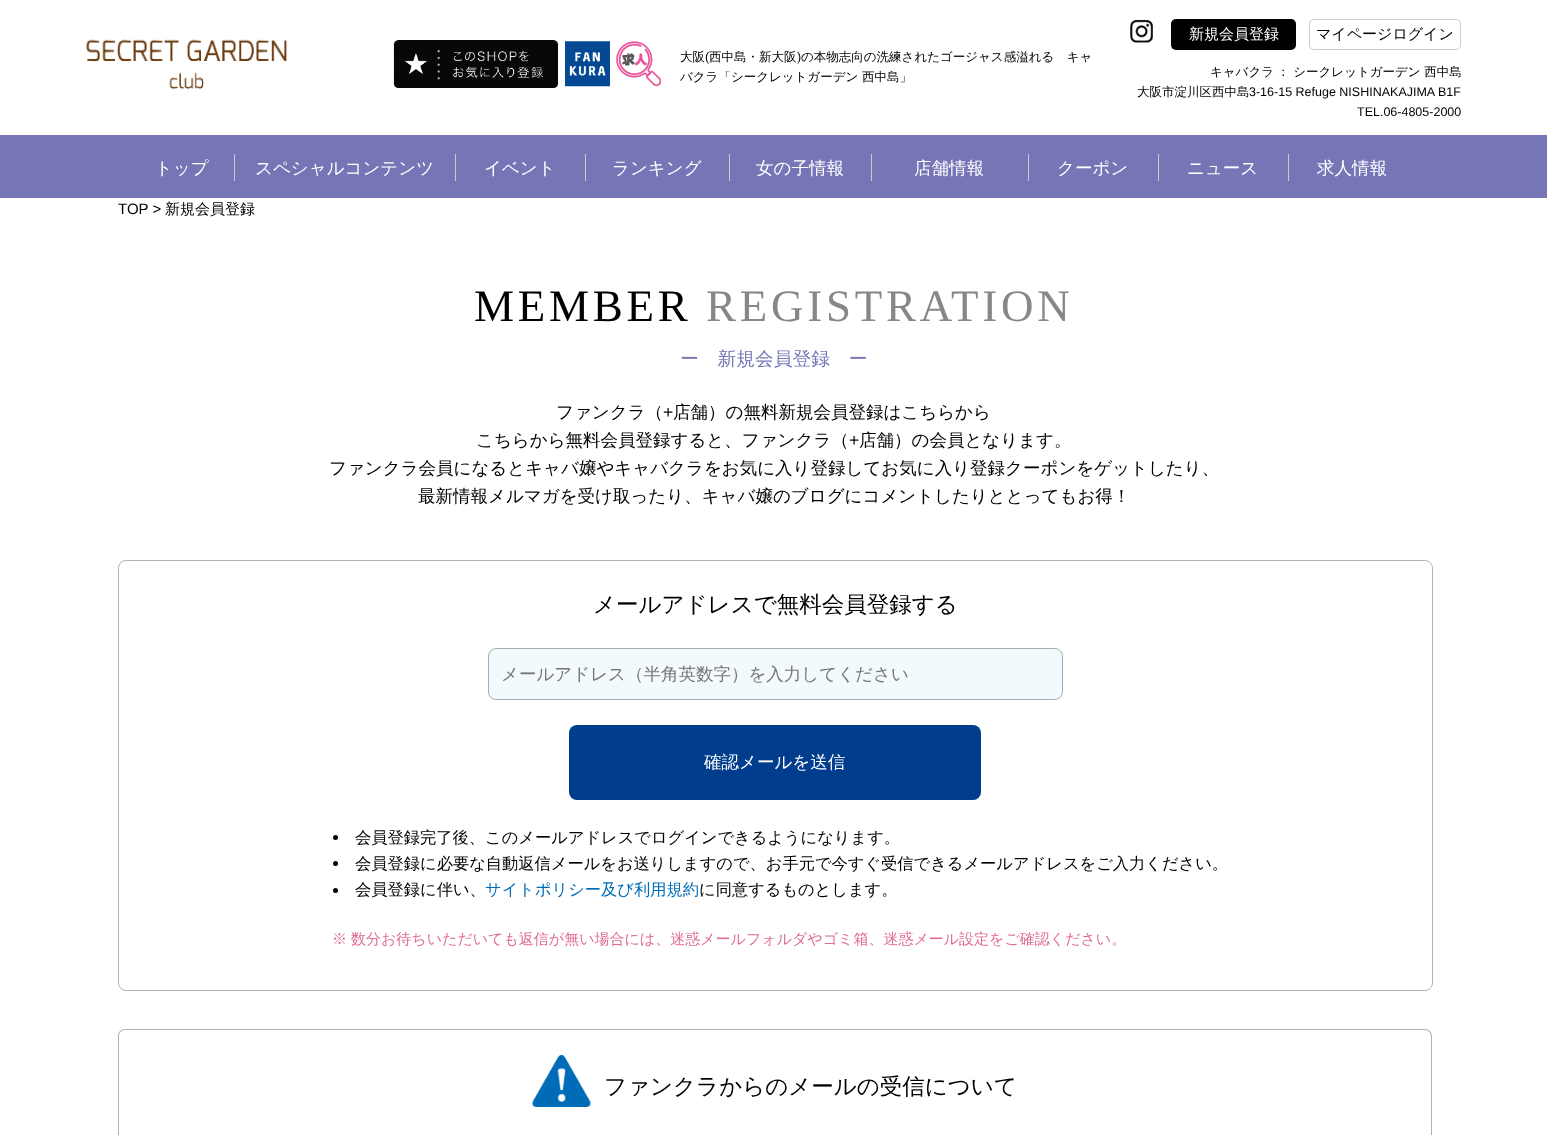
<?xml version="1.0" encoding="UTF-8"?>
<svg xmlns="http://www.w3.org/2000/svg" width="1547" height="1135">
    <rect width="100%" height="100%" fill="#FFFFFF"/>
    <image x="86" y="39" width="202" height="51" href="img_01.png"/>
    <image x="393" y="40" width="165" height="48" href="img_02.png"/>
    <image x="565" y="41" width="45" height="46" href="img_03.png"/>
    <image x="616" y="41" width="45" height="45" href="img_04.png"/>
    <text x="680" y="61" font-family="WenQuanYi Zen Hei" font-size="12.5" font-weight="500" fill="#000000">大阪</text>
    <text x="705" y="61" font-family="Liberation Sans" font-size="12.5" fill="#000000">(</text>
    <text x="709" y="61" font-family="WenQuanYi Zen Hei" font-size="12.5" font-weight="500" fill="#000000">西中島・新大阪</text>
    <text x="797" y="61" font-family="Liberation Sans" font-size="12.5" fill="#000000">)</text>
    <text x="801" y="61" font-family="WenQuanYi Zen Hei" font-size="12.5" font-weight="500" fill="#000000">の本物志向の洗練されたゴージャス感溢れる　キャ</text>
    <text x="680" y="81" font-family="WenQuanYi Zen Hei" font-size="12.5" font-weight="500" fill="#000000">バクラ「シークレットガーデン 西中島」</text>
    <image x="1130" y="19" width="23" height="24" href="img_05.png"/>
    <rect x="1171" y="19" width="125" height="31" rx="5" fill="#000000"/>
    <text x="1189" y="39" font-family="WenQuanYi Zen Hei" font-size="15" font-weight="500" fill="#FFFFFF">新規会員登録</text>
    <rect x="1309.5" y="19.5" width="151" height="30" rx="4.5" fill="none" stroke="#CCCCCC"/>
    <text x="1316" y="39" font-family="WenQuanYi Zen Hei" font-size="15" font-weight="500" fill="#000000">マイページログイン</text>
    <text x="1210" y="76" font-family="WenQuanYi Zen Hei" font-size="12.5" font-weight="500" fill="#000000">キャバクラ</text>
    <text x="1277" y="76" font-family="WenQuanYi Zen Hei" font-size="12.5" font-weight="500" fill="#000000">： シークレットガーデン 西中島</text>
    <text x="1137" y="96" font-family="WenQuanYi Zen Hei" font-size="12.5" font-weight="500" fill="#000000">大阪市淀川区西中島</text>
    <text x="1249" y="96" font-family="Liberation Sans" font-size="12.5" fill="#000000">3-16-15 Refuge NISHINAKAJIMA B1F</text>
    <text x="1357" y="116" font-family="Liberation Sans" font-size="12.5" fill="#000000">TEL.06-4805-2000</text>
    <rect x="0" y="135" width="1547" height="63" fill="#7675B6"/>
    <rect x="234" y="154" width="1" height="27" fill="#CCCCCC"/>
    <text x="155" y="174" font-family="WenQuanYi Zen Hei" font-size="17.5" font-weight="500" fill="#FFFFFF">トップ</text>
    <rect x="455" y="154" width="1" height="27" fill="#CCCCCC"/>
    <text x="255" y="174" font-family="WenQuanYi Zen Hei" font-size="17.5" font-weight="500" fill="#FFFFFF">スペシャルコンテンツ</text>
    <rect x="585" y="154" width="1" height="27" fill="#CCCCCC"/>
    <text x="484" y="174" font-family="WenQuanYi Zen Hei" font-size="17.5" font-weight="500" fill="#FFFFFF">イベント</text>
    <rect x="729" y="154" width="1" height="27" fill="#CCCCCC"/>
    <text x="612" y="174" font-family="WenQuanYi Zen Hei" font-size="17.5" font-weight="500" fill="#FFFFFF">ランキング</text>
    <rect x="871" y="154" width="1" height="27" fill="#CCCCCC"/>
    <text x="756" y="174" font-family="WenQuanYi Zen Hei" font-size="17.5" font-weight="500" fill="#FFFFFF">女の子情報</text>
    <rect x="1028" y="154" width="1" height="27" fill="#CCCCCC"/>
    <text x="914" y="174" font-family="WenQuanYi Zen Hei" font-size="17.5" font-weight="500" fill="#FFFFFF">店舗情報</text>
    <rect x="1158" y="154" width="1" height="27" fill="#CCCCCC"/>
    <text x="1057" y="174" font-family="WenQuanYi Zen Hei" font-size="17.5" font-weight="500" fill="#FFFFFF">クーポン</text>
    <rect x="1288" y="154" width="1" height="27" fill="#CCCCCC"/>
    <text x="1187" y="174" font-family="WenQuanYi Zen Hei" font-size="17.5" font-weight="500" fill="#FFFFFF">ニュース</text>
    <text x="1317" y="174" font-family="WenQuanYi Zen Hei" font-size="17.5" font-weight="500" fill="#FFFFFF">求人情報</text>
    <text x="118" y="214" font-family="Liberation Sans" font-size="15" fill="#000000">TOP &gt;</text>
    <text x="165" y="214" font-family="WenQuanYi Zen Hei" font-size="15" font-weight="500" fill="#000000">新規会員登録</text>
    <text x="474" y="321" font-family="Liberation Serif" font-size="45" letter-spacing="3.75" fill="#000000">MEMBER</text>
    <text x="706" y="321" font-family="Liberation Serif" font-size="45" letter-spacing="3.75" fill="#878787">REGISTRATION</text>
    <text x="680" y="365" font-family="WenQuanYi Zen Hei" font-size="18.75" font-weight="500" fill="#7675B6">ー　新規会員登録　ー</text>
    <text x="556" y="418" font-family="WenQuanYi Zen Hei" font-size="17.5" font-weight="500" fill="#000000">ファンクラ（</text>
    <text x="663" y="418" font-family="Liberation Sans" font-size="17.5" fill="#000000">+</text>
    <text x="673" y="418" font-family="WenQuanYi Zen Hei" font-size="17.5" font-weight="500" fill="#000000">店舗）の無料新規会員登録はこちらから</text>
    <text x="476" y="446" font-family="WenQuanYi Zen Hei" font-size="17.5" font-weight="500" fill="#000000">こちらから無料会員登録すると、ファンクラ（</text>
    <text x="849" y="446" font-family="Liberation Sans" font-size="17.5" fill="#000000">+</text>
    <text x="859" y="446" font-family="WenQuanYi Zen Hei" font-size="17.5" font-weight="500" fill="#000000">店舗）の会員となります。</text>
    <text x="329" y="474" font-family="WenQuanYi Zen Hei" font-size="17.5" font-weight="500" fill="#000000">ファンクラ会員になるとキャバ嬢やキャバクラをお気に入り登録してお気に入り登録クーポンをゲットしたり、</text>
    <text x="418" y="502" font-family="WenQuanYi Zen Hei" font-size="17.5" font-weight="500" fill="#000000">最新情報メルマガを受け取ったり、キャバ嬢のブログにコメントしたりととってもお得！</text>
    <rect x="118.5" y="560.5" width="1314" height="430" rx="7.5" fill="none" stroke="#B3B3B3"/>
    <text x="593" y="612" font-family="WenQuanYi Zen Hei" font-size="22.5" font-weight="500" fill="#000000">メールアドレスで無料会員登録する</text>
    <rect x="488" y="648" width="575" height="52" rx="8" fill="#F3FAFE"/>
    <rect x="488.5" y="648.5" width="574" height="51" rx="7.5" fill="none" stroke="#000000" stroke-opacity="0.3"/>
    <text x="501" y="680" font-family="WenQuanYi Zen Hei" font-size="17.5" font-weight="500" fill="#757575">メールアドレス（半角英数字）を入力してください</text>
    <rect x="569" y="725" width="412" height="75" rx="8" fill="#003D8C"/>
    <text x="704" y="768" font-family="WenQuanYi Zen Hei" font-size="17.5" font-weight="500" fill="#FFFFFF">確認メールを送信</text>
    <circle cx="335.5" cy="837.5" r="2.5" fill="#000000"/>
    <text x="355" y="843" font-family="WenQuanYi Zen Hei" font-size="16.25" font-weight="500" fill="#000000">会員登録完了後、このメールアドレスでログインできるようになります。</text>
    <circle cx="335.5" cy="863.5" r="2.5" fill="#000000"/>
    <text x="355" y="869" font-family="WenQuanYi Zen Hei" font-size="16.25" font-weight="500" fill="#000000">会員登録に必要な自動返信メールをお送りしますので、お手元で今すぐ受信できるメールアドレスをご入力ください。</text>
    <circle cx="335.5" cy="890.5" r="2.5" fill="#000000"/>
    <text x="355" y="895" font-family="WenQuanYi Zen Hei" font-size="16.25" font-weight="500" fill="#000000">会員登録に伴い、</text>
    <text x="485" y="895" font-family="WenQuanYi Zen Hei" font-size="16.25" font-weight="500" fill="#006CB7">サイトポリシー及び利用規約</text>
    <text x="699" y="895" font-family="WenQuanYi Zen Hei" font-size="16.25" font-weight="500" fill="#000000">に同意するものとします。</text>
    <text x="332" y="944" font-family="WenQuanYi Zen Hei" font-size="15" font-weight="500" fill="#DF6B96">※</text>
    <text x="351" y="944" font-family="WenQuanYi Zen Hei" font-size="15" font-weight="500" fill="#DF6B96">数分お待ちいただいても返信が無い場合には、迷惑メールフォルダやゴミ箱、迷惑メール設定をご確認ください。</text>
    <path d="M 125 1029 H 1425 C 1429 1029 1432 1032 1432 1036 V 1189 H 118 V 1036 C 118 1032 121 1029 125 1029 Z M 125 1030 H 1425 C 1428 1030 1431 1033 1431 1036 V 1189 H 119 V 1036 C 119 1033 122 1030 125 1030 Z" fill="#B3B3B3" fill-rule="evenodd"/>
    <image x="532" y="1055" width="59" height="52" href="img_06.png"/>
    <text x="604" y="1094" font-family="WenQuanYi Zen Hei" font-size="22.5" font-weight="500" fill="#000000">ファンクラからのメールの受信について</text>
</svg>
